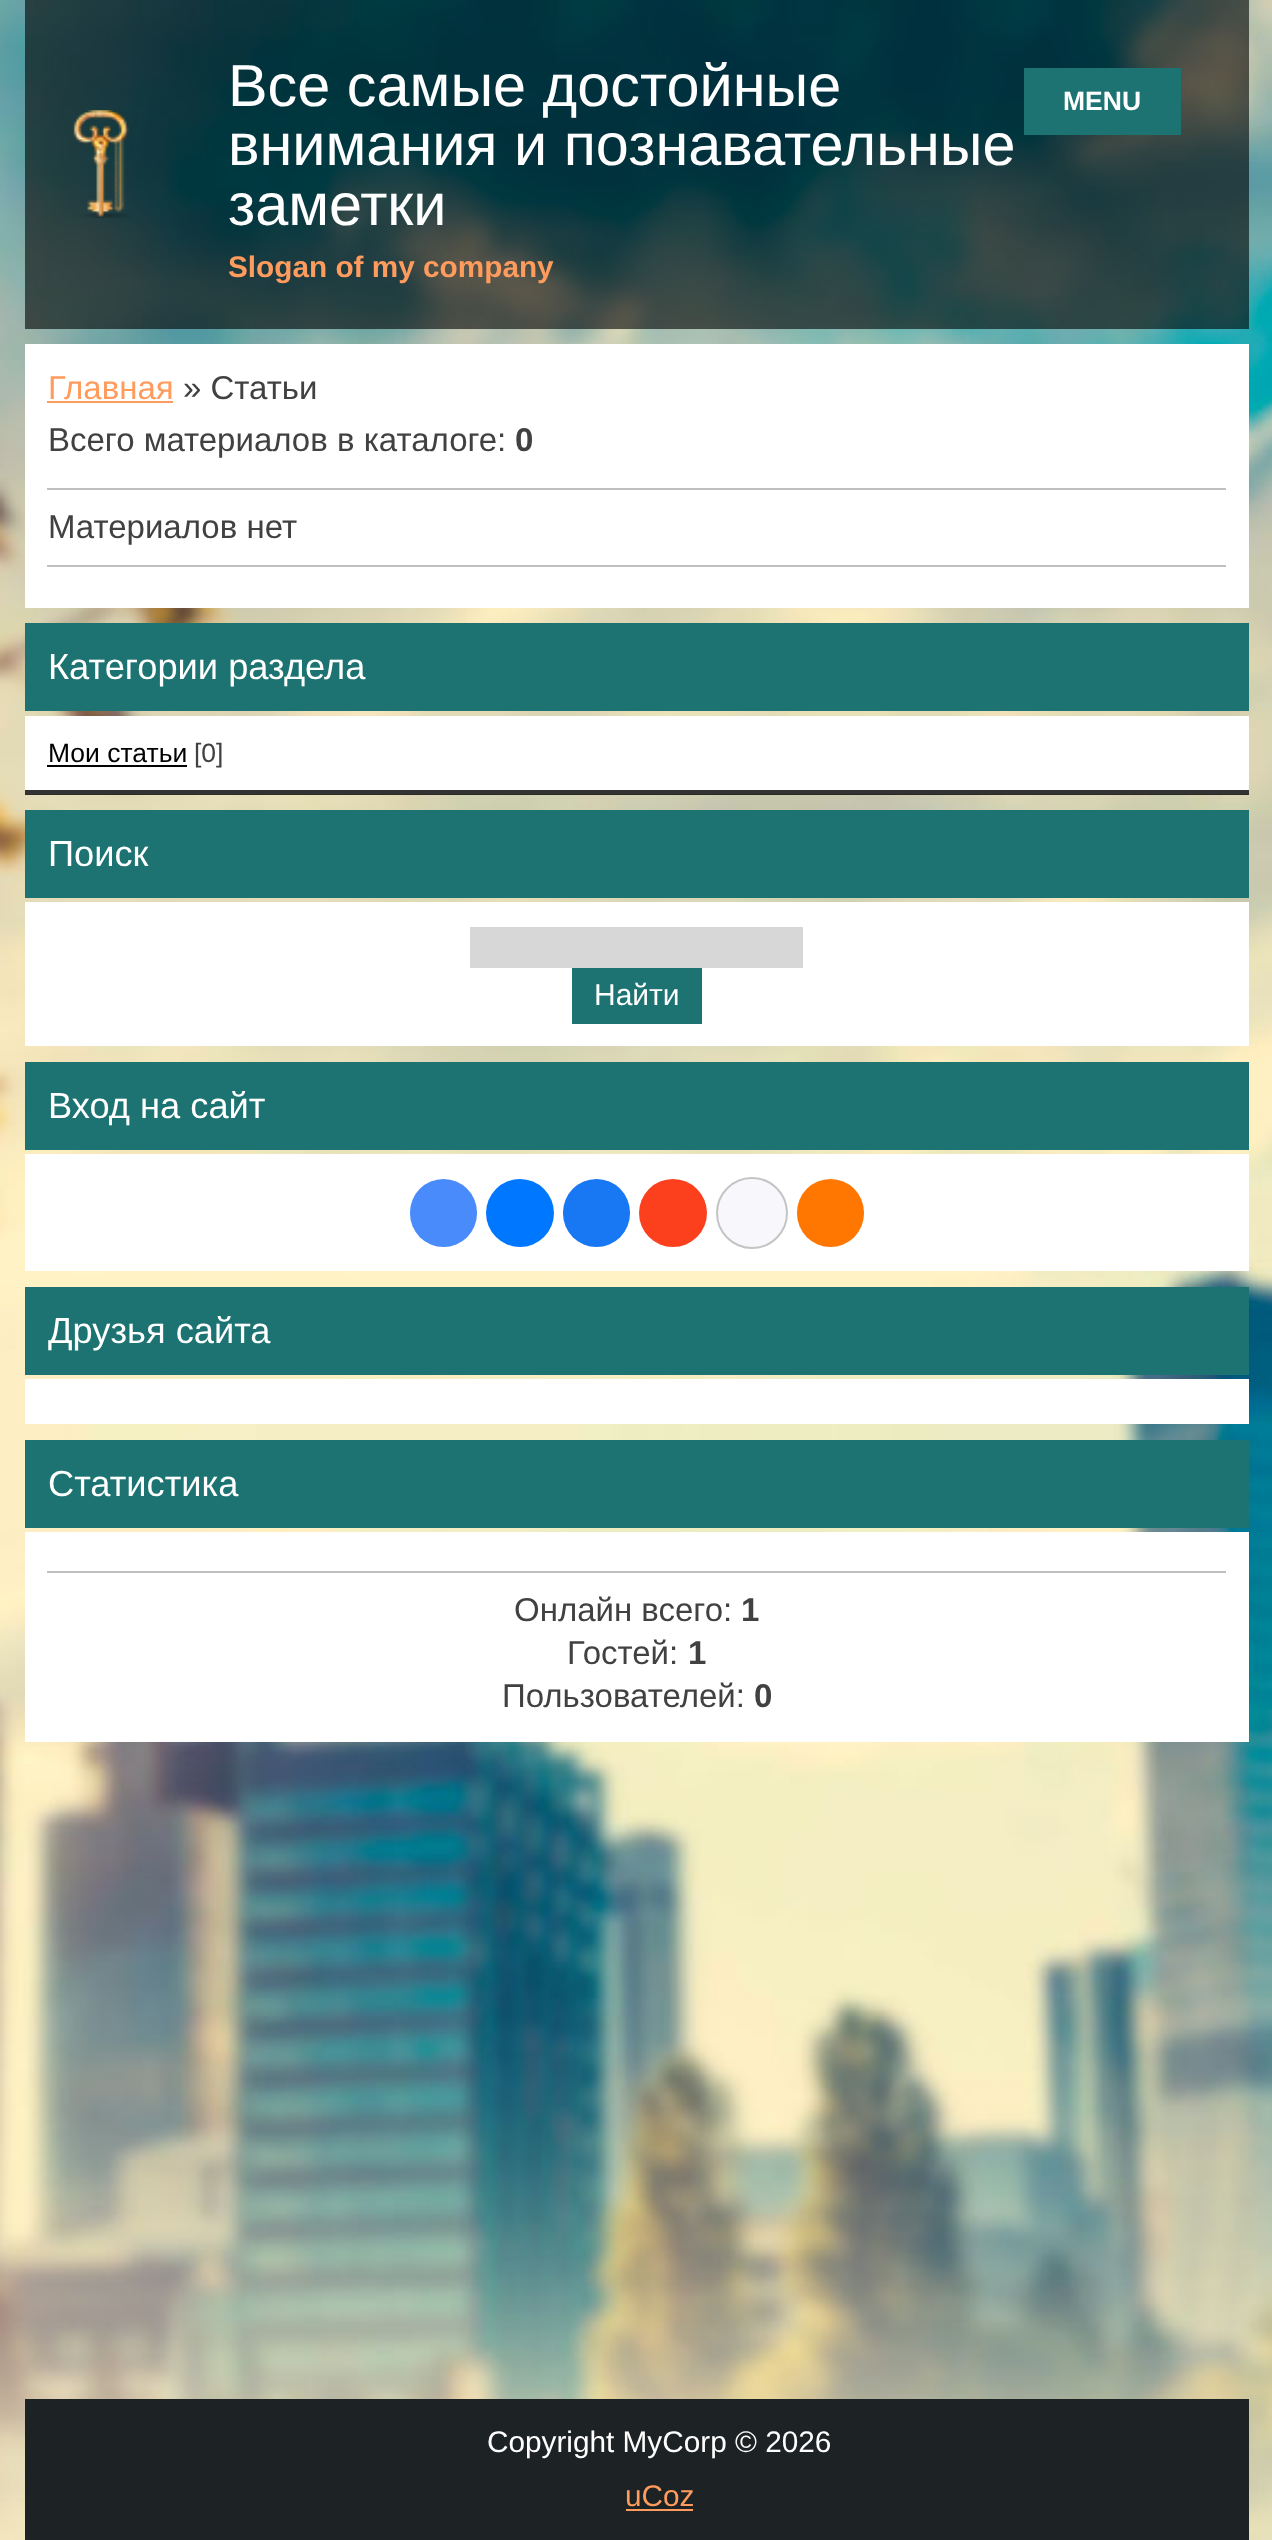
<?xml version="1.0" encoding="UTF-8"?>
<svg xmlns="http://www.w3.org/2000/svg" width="1272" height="2540">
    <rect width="100%" height="100%" fill="#FFFFFF"/>
    <image x="0" y="0" width="1272" height="2540" href="img_01.png"/>
    <rect x="25" y="0" width="1224" height="329" fill="#000000" fill-opacity="0.6"/>
    <image x="73" y="110" width="56" height="108" href="img_02.png"/>
    <text font-family="Liberation Sans" font-size="59.4" fill="#FFFFFF">
        <tspan x="228" y="106">Все самые достойные</tspan>
        <tspan x="228" y="165">внимания и познавательные</tspan>
        <tspan x="228" y="225">заметки</tspan>
    </text>
    <text x="228" y="277" font-family="Liberation Sans" font-size="29.75" font-weight="700" fill="#FF9B5D">Slogan of my company</text>
    <rect x="1024" y="68" width="157" height="67" fill="#1C7372"/>
    <text x="1063" y="110" font-family="Liberation Sans" font-size="26.5" font-weight="700" fill="#FFFFFF">MENU</text>
    <rect x="25" y="344" width="1224" height="264" fill="#FFFFFF"/>
    <text x="48" y="399" font-family="Liberation Sans" font-size="33" fill="#FF9B5D">Главная</text>
    <rect x="47" y="401" width="126" height="2" fill="#FF9B5D"/>
    <text x="183" y="399" font-family="Liberation Sans" font-size="33" fill="#414141">» Статьи</text>
    <text x="48" y="451" font-family="Liberation Sans" font-size="33" fill="#414141">Всего материалов в каталоге</text>
    <text x="497" y="451" font-family="Liberation Sans" font-size="33" fill="#414141">:</text>
    <text x="515" y="451" font-family="Liberation Sans" font-size="33" font-weight="700" fill="#414141">0</text>
    <rect x="47" y="488" width="1179" height="2" fill="#BFBFBF"/>
    <text x="48" y="538" font-family="Liberation Sans" font-size="33" fill="#414141">Материалов нет</text>
    <rect x="47" y="565" width="1179" height="2" fill="#BFBFBF"/>
    <rect x="25" y="623" width="1224" height="88" fill="#1C7372"/>
    <text x="48" y="679" font-family="Liberation Sans" font-size="36.25" fill="#FFFFFF">Категории раздела</text>
    <rect x="25" y="716" width="1224" height="78" fill="#FFFFFF"/>
    <rect x="25" y="790" width="1224" height="5" fill="#000000" fill-opacity="0.8"/>
    <text x="48" y="762" font-family="Liberation Sans" font-size="26.5" fill="#000000">Мои статьи</text>
    <rect x="47" y="765" width="140" height="2" fill="#000000"/>
    <text x="194" y="762" font-family="Liberation Sans" font-size="26.5" fill="#414141">[0]</text>
    <rect x="25" y="810" width="1224" height="88" fill="#1C7372"/>
    <text x="48" y="866" font-family="Liberation Sans" font-size="36.25" fill="#FFFFFF">Поиск</text>
    <rect x="25" y="902" width="1224" height="144" fill="#FFFFFF"/>
    <rect x="470" y="927" width="333" height="41" fill="#D7D7D7"/>
    <rect x="572" y="968" width="130" height="56" fill="#1C7372"/>
    <text x="594" y="1005" font-family="Liberation Sans" font-size="30" fill="#FFFFFF">Найти</text>
    <rect x="25" y="1062" width="1224" height="88" fill="#1C7372"/>
    <text x="48" y="1118" font-family="Liberation Sans" font-size="36.25" fill="#FFFFFF">Вход на сайт</text>
    <rect x="25" y="1154" width="1224" height="117" fill="#FFFFFF"/>
    <rect x="410" y="1179" width="67" height="68" rx="33.5" fill="#498BFA"/>
    <circle cx="520" cy="1213" r="34" fill="#0077FF"/>
    <rect x="563" y="1179" width="67" height="68" rx="33.5" fill="#1877F2"/>
    <circle cx="673" cy="1213" r="34" fill="#FC3F1D"/>
    <circle cx="752" cy="1213" r="35" fill="#F8F8FC" stroke="#C4C4C4" stroke-width="2"/>
    <rect x="797" y="1179" width="67" height="68" rx="33.5" fill="#FF7700"/>
    <rect x="25" y="1287" width="1224" height="88" fill="#1C7372"/>
    <text x="48" y="1343" font-family="Liberation Sans" font-size="36.25" fill="#FFFFFF">Друзья сайта</text>
    <rect x="25" y="1379" width="1224" height="45" fill="#FFFFFF"/>
    <rect x="25" y="1440" width="1224" height="88" fill="#1C7372"/>
    <text x="48" y="1496" font-family="Liberation Sans" font-size="36.25" fill="#FFFFFF">Статистика</text>
    <rect x="25" y="1532" width="1224" height="210" fill="#FFFFFF"/>
    <rect x="47" y="1571" width="1179" height="2" fill="#BFBFBF"/>
    <text x="514" y="1621" font-family="Liberation Sans" font-size="33" fill="#414141">Онлайн всего:</text>
    <text x="741" y="1621" font-family="Liberation Sans" font-size="33" font-weight="700" fill="#414141">1</text>
    <text x="567" y="1664" font-family="Liberation Sans" font-size="33" fill="#414141">Гостей:</text>
    <text x="688" y="1664" font-family="Liberation Sans" font-size="33" font-weight="700" fill="#414141">1</text>
    <text x="502" y="1707" font-family="Liberation Sans" font-size="33" fill="#414141">Пользователей:</text>
    <text x="754" y="1707" font-family="Liberation Sans" font-size="33" font-weight="700" fill="#414141">0</text>
    <rect x="25" y="2399" width="1224" height="141" fill="#1D2324"/>
    <text x="487" y="2452" font-family="Liberation Sans" font-size="29.75" fill="#FFFFFF">Copyright MyCorp © 2026</text>
    <text x="625" y="2506" font-family="Liberation Sans" font-size="29.75" fill="#FF9B5D">uCoz</text>
    <rect x="626" y="2509" width="67" height="2" fill="#FF9B5D"/>
</svg>
